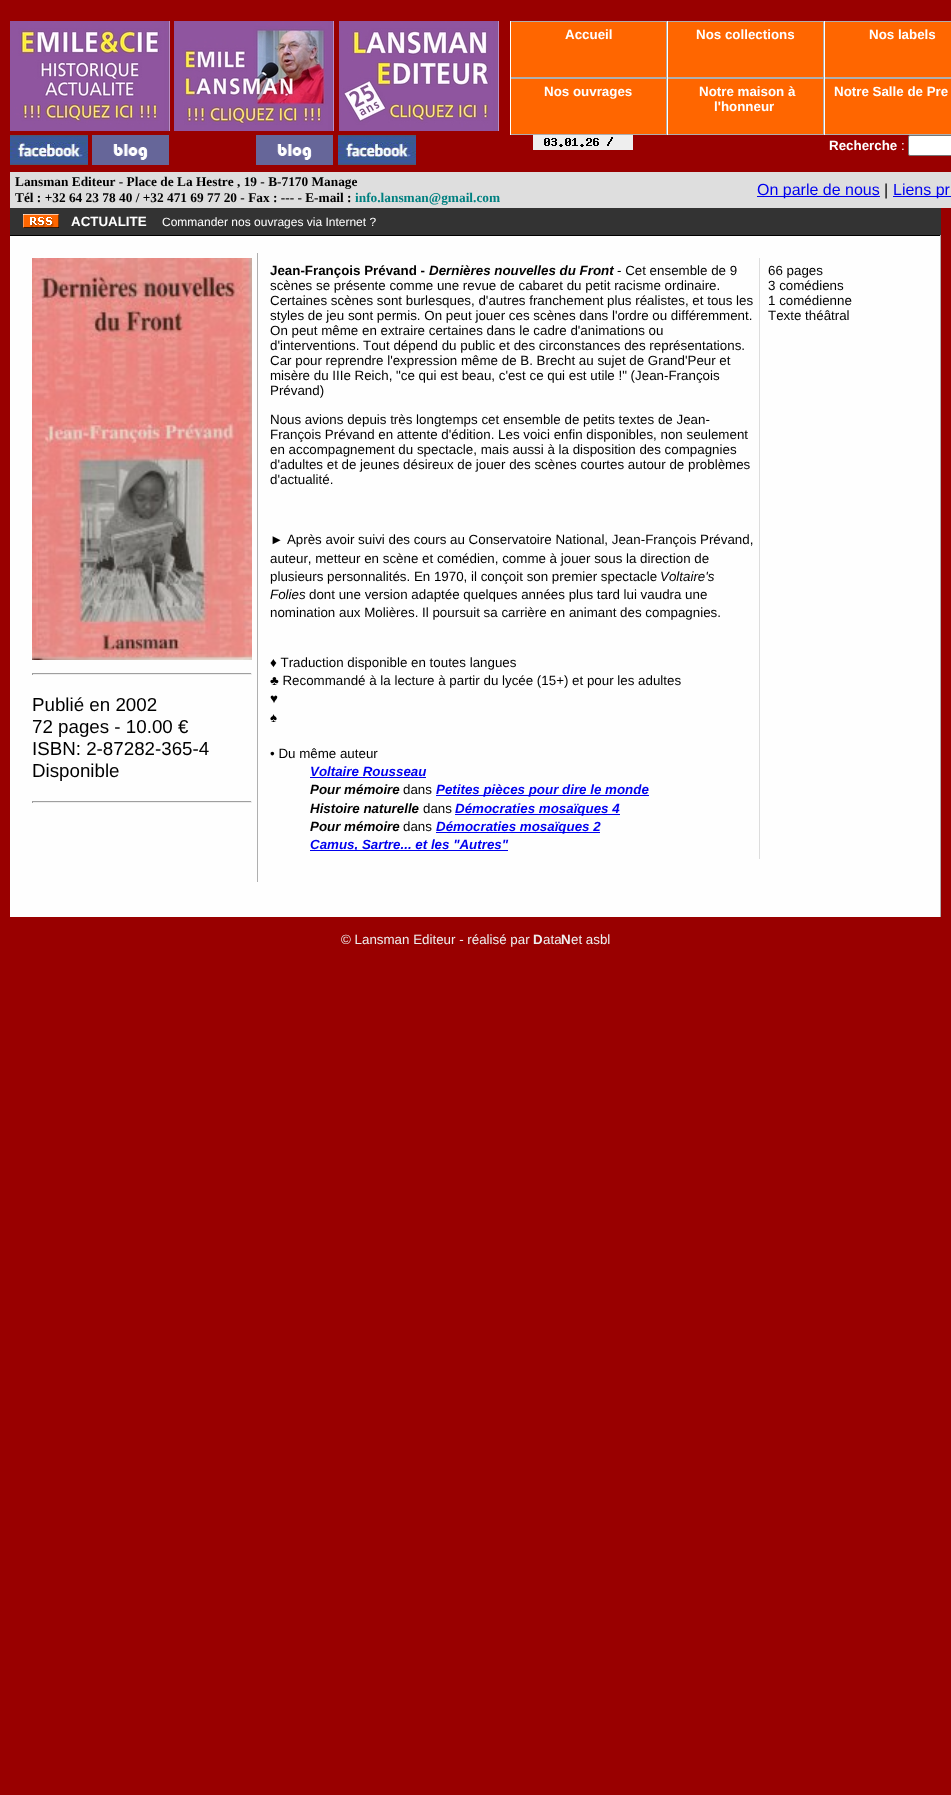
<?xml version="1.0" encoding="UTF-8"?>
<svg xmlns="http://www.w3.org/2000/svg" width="951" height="1795">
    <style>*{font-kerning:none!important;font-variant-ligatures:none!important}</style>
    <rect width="100%" height="100%" fill="#990000"/>
    <image x="10" y="21" width="160" height="110" href="img_01.png"/>
    <image x="174" y="21" width="160" height="110" href="img_02.png"/>
    <image x="339" y="21" width="160" height="110" href="img_03.png"/>
    <image x="10" y="135" width="78" height="30" href="img_04.png"/>
    <image x="92" y="135" width="77" height="30" href="img_05.png"/>
    <image x="256" y="135" width="77" height="30" href="img_06.png"/>
    <image x="338" y="135" width="78" height="30" href="img_07.png"/>
    <rect x="511" y="22" width="155" height="55" fill="#FF6600"/>
    <rect x="510" y="21" width="441" height="1" fill="#AFAFAF"/>
    <rect x="666" y="21" width="1" height="57" fill="#AFAFAF"/>
    <rect x="510" y="77" width="157" height="2" fill="#AFAFAF"/>
    <rect x="510" y="21" width="1" height="57" fill="#FFFFFF"/>
    <text x="565" y="39" font-family="Liberation Sans" font-size="13.35" font-weight="700" fill="#FFFFFF">Accueil</text>
    <rect x="668" y="22" width="155" height="55" fill="#FF6600"/>
    <rect x="823" y="21" width="1" height="57" fill="#AFAFAF"/>
    <rect x="667" y="77" width="284" height="1" fill="#AFAFAF"/>
    <rect x="667" y="21" width="1" height="57" fill="#FFFFFF"/>
    <text x="696" y="39" font-family="Liberation Sans" font-size="13.35" font-weight="700" fill="#FFFFFF">Nos collections</text>
    <rect x="825" y="22" width="126" height="55" fill="#FF6600"/>
    <rect x="824" y="21" width="1" height="57" fill="#FFFFFF"/>
    <text x="869" y="39" font-family="Liberation Sans" font-size="13.35" font-weight="700" fill="#FFFFFF">Nos labels</text>
    <rect x="511" y="79" width="155" height="55" fill="#FF6600"/>
    <rect x="666" y="78" width="1" height="57" fill="#AFAFAF"/>
    <rect x="510" y="134" width="157" height="1" fill="#AFAFAF"/>
    <rect x="510" y="78" width="1" height="57" fill="#FFFFFF"/>
    <text x="544" y="96" font-family="Liberation Sans" font-size="13.35" font-weight="700" fill="#FFFFFF">Nos ouvrages</text>
    <rect x="668" y="79" width="155" height="55" fill="#FF6600"/>
    <rect x="667" y="78" width="284" height="1" fill="#AFAFAF"/>
    <rect x="823" y="78" width="1" height="57" fill="#AFAFAF"/>
    <rect x="667" y="134" width="284" height="1" fill="#AFAFAF"/>
    <rect x="667" y="78" width="1" height="57" fill="#FFFFFF"/>
    <text x="699" y="96" font-family="Liberation Sans" font-size="13.35" font-weight="700" fill="#FFFFFF">Notre maison à</text>
    <text x="714" y="111" font-family="Liberation Sans" font-size="13.35" font-weight="700" fill="#FFFFFF">l'honneur</text>
    <rect x="825" y="79" width="126" height="55" fill="#FF6600"/>
    <rect x="824" y="78" width="1" height="57" fill="#FFFFFF"/>
    <text x="834" y="96" font-family="Liberation Sans" font-size="13.35" font-weight="700" fill="#FFFFFF">Notre Salle de Pre</text>
    <image x="533" y="135" width="100" height="15" href="img_08.png"/>
    <text x="829" y="150" font-family="Liberation Sans" font-size="13.35" font-weight="700" fill="#FFFFFF">Recherche</text>
    <text x="901" y="150" font-family="Liberation Sans" font-size="13.35" fill="#FFFFFF">:</text>
    <rect x="908.5" y="135.5" width="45" height="20" rx="1.5" fill="#FFFFFF" stroke="#767676"/>
    <rect x="10" y="172" width="941" height="36" fill="#DEDEDE"/>
    <text font-family="Liberation Serif" font-size="13.35" font-weight="700" fill="#000000">
        <tspan x="15" y="186">Lansman Editeur - Place de La Hestre , 19 - B-7170 Manage</tspan>
        <tspan x="15" y="202">Tél : +32 64 23 78 40 / +32 471 69 77 20 - Fax : --- - E-mail :</tspan>
    </text>
    <text x="355" y="202" font-family="Liberation Serif" font-size="13.35" font-weight="700" fill="#008080">info.lansman@gmail.com</text>
    <rect x="757" y="196" width="123" height="1" fill="#0000EE"/>
    <text x="757" y="195" font-family="Liberation Sans" font-size="16" fill="#0000EE">On parle de nous</text>
    <text x="884" y="195" font-family="Liberation Sans" font-size="16" fill="#000000">|</text>
    <rect x="893" y="196" width="58" height="1" fill="#0000EE"/>
    <text x="893" y="195" font-family="Liberation Sans" font-size="16" fill="#0000EE">Liens pr</text>
    <rect x="10" y="208" width="931" height="27" fill="#333333"/>
    <image x="23" y="214" width="36" height="14" href="img_09.png"/>
    <text x="71" y="226" font-family="Liberation Sans" font-size="13.35" font-weight="700" fill="#FFFFFF">ACTUALITE</text>
    <text x="162" y="226" font-family="Liberation Sans" font-size="12" fill="#FFFFFF">Commander nos ouvrages via Internet ?</text>
    <rect x="10" y="236" width="930" height="681" fill="#FEFEFE"/>
    <rect x="10" y="235" width="931" height="1" fill="#000000"/>
    <rect x="940" y="235" width="1" height="682" fill="#AFAFAF"/>
    <rect x="257" y="253" width="1" height="629" fill="#AFAFAF"/>
    <image x="32" y="258" width="220" height="402" href="img_10.png"/>
    <rect x="32" y="673" width="220" height="1" fill="#9F9F9F"/>
    <rect x="251" y="673" width="1" height="2" fill="#EEEEEE"/>
    <rect x="32" y="674" width="220" height="1" fill="#EEEEEE"/>
    <rect x="32" y="673" width="1" height="2" fill="#9F9F9F"/>
    <text font-family="Liberation Sans" font-size="18.75" fill="#000000">
        <tspan x="32" y="711">Publié en 2002</tspan>
        <tspan x="32" y="733">72 pages - 10.00 €</tspan>
        <tspan x="32" y="755">ISBN: 2-87282-365-4</tspan>
        <tspan x="32" y="777">Disponible</tspan>
    </text>
    <rect x="32" y="801" width="220" height="1" fill="#9F9F9F"/>
    <rect x="251" y="801" width="1" height="2" fill="#EEEEEE"/>
    <rect x="32" y="802" width="220" height="1" fill="#EEEEEE"/>
    <rect x="32" y="801" width="1" height="2" fill="#9F9F9F"/>
    <text x="270" y="275" font-family="Liberation Sans" font-size="13.35" font-weight="700" fill="#000000">Jean-François Prévand -</text>
    <text x="429" y="275" font-family="Liberation Sans" font-size="13.35" font-weight="700" font-style="italic" fill="#000000">Dernières nouvelles du Front</text>
    <text x="617" y="275" font-family="Liberation Sans" font-size="13.35" fill="#000000">- Cet ensemble de 9</text>
    <text font-family="Liberation Sans" font-size="13.35" fill="#000000">
        <tspan x="270" y="290">scènes se présente comme une revue de cabaret du petit racisme ordinaire.</tspan>
        <tspan x="270" y="305">Certaines scènes sont burlesques, d'autres franchement plus réalistes, et tous les</tspan>
        <tspan x="270" y="320">styles de jeu sont permis. On peut jouer ces scènes dans l'ordre ou différemment.</tspan>
        <tspan x="270" y="335">On peut même en extraire certaines dans le cadre d'animations ou</tspan>
        <tspan x="270" y="350">d'interventions. Tout dépend du public et des circonstances des représentations.</tspan>
        <tspan x="270" y="365">Car pour reprendre l'expression même de B. Brecht au sujet de Grand'Peur et</tspan>
        <tspan x="270" y="380">misère du IIIe Reich, "ce qui est beau, c'est ce qui est utile !" (Jean-François</tspan>
        <tspan x="270" y="395">Prévand)</tspan>
    </text>
    <text font-family="Liberation Sans" font-size="13.35" fill="#000000">
        <tspan x="270" y="424">Nous avions depuis très longtemps cet ensemble de petits textes de Jean-</tspan>
        <tspan x="270" y="439">François Prévand en attente d'édition. Les voici enfin disponibles, non seulement</tspan>
        <tspan x="270" y="454">en accompagnement du spectacle, mais aussi à la disposition des compagnies</tspan>
        <tspan x="270" y="469">d'adultes et de jeunes désireux de jouer des scènes courtes autour de problèmes</tspan>
        <tspan x="270" y="484">d'actualité.</tspan>
    </text>
    <text font-family="Liberation Sans" font-size="13.35" fill="#000000">
        <tspan x="270" y="544">► Après avoir suivi des cours au Conservatoire National, Jean-François Prévand,</tspan>
        <tspan x="270" y="563">auteur, metteur en scène et comédien, comme à jouer sous la direction de</tspan>
        <tspan x="270" y="581">plusieurs personnalités. En 1970, il conçoit son premier spectacle</tspan>
    </text>
    <text x="660" y="581" font-family="Liberation Sans" font-size="13.35" font-style="italic" fill="#000000">Voltaire's</text>
    <text x="270" y="599" font-family="Liberation Sans" font-size="13.35" font-style="italic" fill="#000000">Folies</text>
    <text x="309" y="599" font-family="Liberation Sans" font-size="13.35" fill="#000000">dont une version adaptée quelques années plus tard lui vaudra une</text>
    <text x="270" y="617" font-family="Liberation Sans" font-size="13.35" fill="#000000">nomination aux Molières. Il poursuit sa carrière en animant des compagnies.</text>
    <text font-family="Liberation Sans" font-size="13.35" fill="#000000">
        <tspan x="270" y="667">♦ Traduction disponible en toutes langues</tspan>
        <tspan x="270" y="685">♣ Recommandé à la lecture à partir du lycée (15+) et pour les adultes</tspan>
        <tspan x="270" y="703">♥</tspan>
        <tspan x="270" y="722">♠</tspan>
    </text>
    <text x="270" y="758" font-family="Liberation Sans" font-size="13.35" fill="#000000">• Du même auteur</text>
    <text x="310" y="776" font-family="Liberation Sans" font-size="13.35" font-weight="700" font-style="italic" fill="#0000EE">Voltaire Rousseau</text>
    <rect x="310" y="777" width="116" height="1" fill="#0000EE"/>
    <text x="310" y="794" font-family="Liberation Sans" font-size="13.35" font-weight="700" font-style="italic" fill="#000000">Pour mémoire</text>
    <text x="403" y="794" font-family="Liberation Sans" font-size="13.35" fill="#000000">dans</text>
    <rect x="436" y="795" width="213" height="1" fill="#0000EE"/>
    <text x="436" y="794" font-family="Liberation Sans" font-size="13.35" font-weight="700" font-style="italic" fill="#0000EE">Petites pièces pour dire le monde</text>
    <text x="310" y="813" font-family="Liberation Sans" font-size="13.35" font-weight="700" font-style="italic" fill="#000000">Histoire naturelle</text>
    <text x="423" y="813" font-family="Liberation Sans" font-size="13.35" fill="#000000">dans</text>
    <rect x="455" y="814" width="165" height="1" fill="#0000EE"/>
    <text x="455" y="813" font-family="Liberation Sans" font-size="13.35" font-weight="700" font-style="italic" fill="#0000EE">Démocraties mosaïques 4</text>
    <text x="310" y="831" font-family="Liberation Sans" font-size="13.35" font-weight="700" font-style="italic" fill="#000000">Pour mémoire</text>
    <text x="403" y="831" font-family="Liberation Sans" font-size="13.35" fill="#000000">dans</text>
    <rect x="436" y="832" width="164" height="1" fill="#0000EE"/>
    <text x="436" y="831" font-family="Liberation Sans" font-size="13.35" font-weight="700" font-style="italic" fill="#0000EE">Démocraties mosaïques 2</text>
    <rect x="310" y="850" width="198" height="1" fill="#0000EE"/>
    <text x="310" y="849" font-family="Liberation Sans" font-size="13.35" font-weight="700" font-style="italic" fill="#0000EE">Camus, Sartre... et les "Autres"</text>
    <rect x="759" y="258" width="1" height="601" fill="#DDDDDD"/>
    <text font-family="Liberation Sans" font-size="13.35" fill="#000000">
        <tspan x="768" y="275">66 pages</tspan>
        <tspan x="768" y="290">3 comédiens</tspan>
        <tspan x="768" y="305">1 comédienne</tspan>
        <tspan x="768" y="320">Texte théâtral</tspan>
    </text>
    <text x="341" y="944" font-family="Liberation Sans" font-size="13.35" fill="#EEEEEE">© Lansman Editeur - réalisé par</text>
    <text x="533" y="944" font-family="Liberation Sans" font-size="13.35" font-weight="700" fill="#EEEEEE">D</text>
    <text x="543" y="944" font-family="Liberation Sans" font-size="13.35" fill="#EEEEEE">ata</text>
    <text x="561" y="944" font-family="Liberation Sans" font-size="13.35" font-weight="700" fill="#EEEEEE">N</text>
    <text x="571" y="944" font-family="Liberation Sans" font-size="13.35" fill="#EEEEEE">et asbl</text>
</svg>
